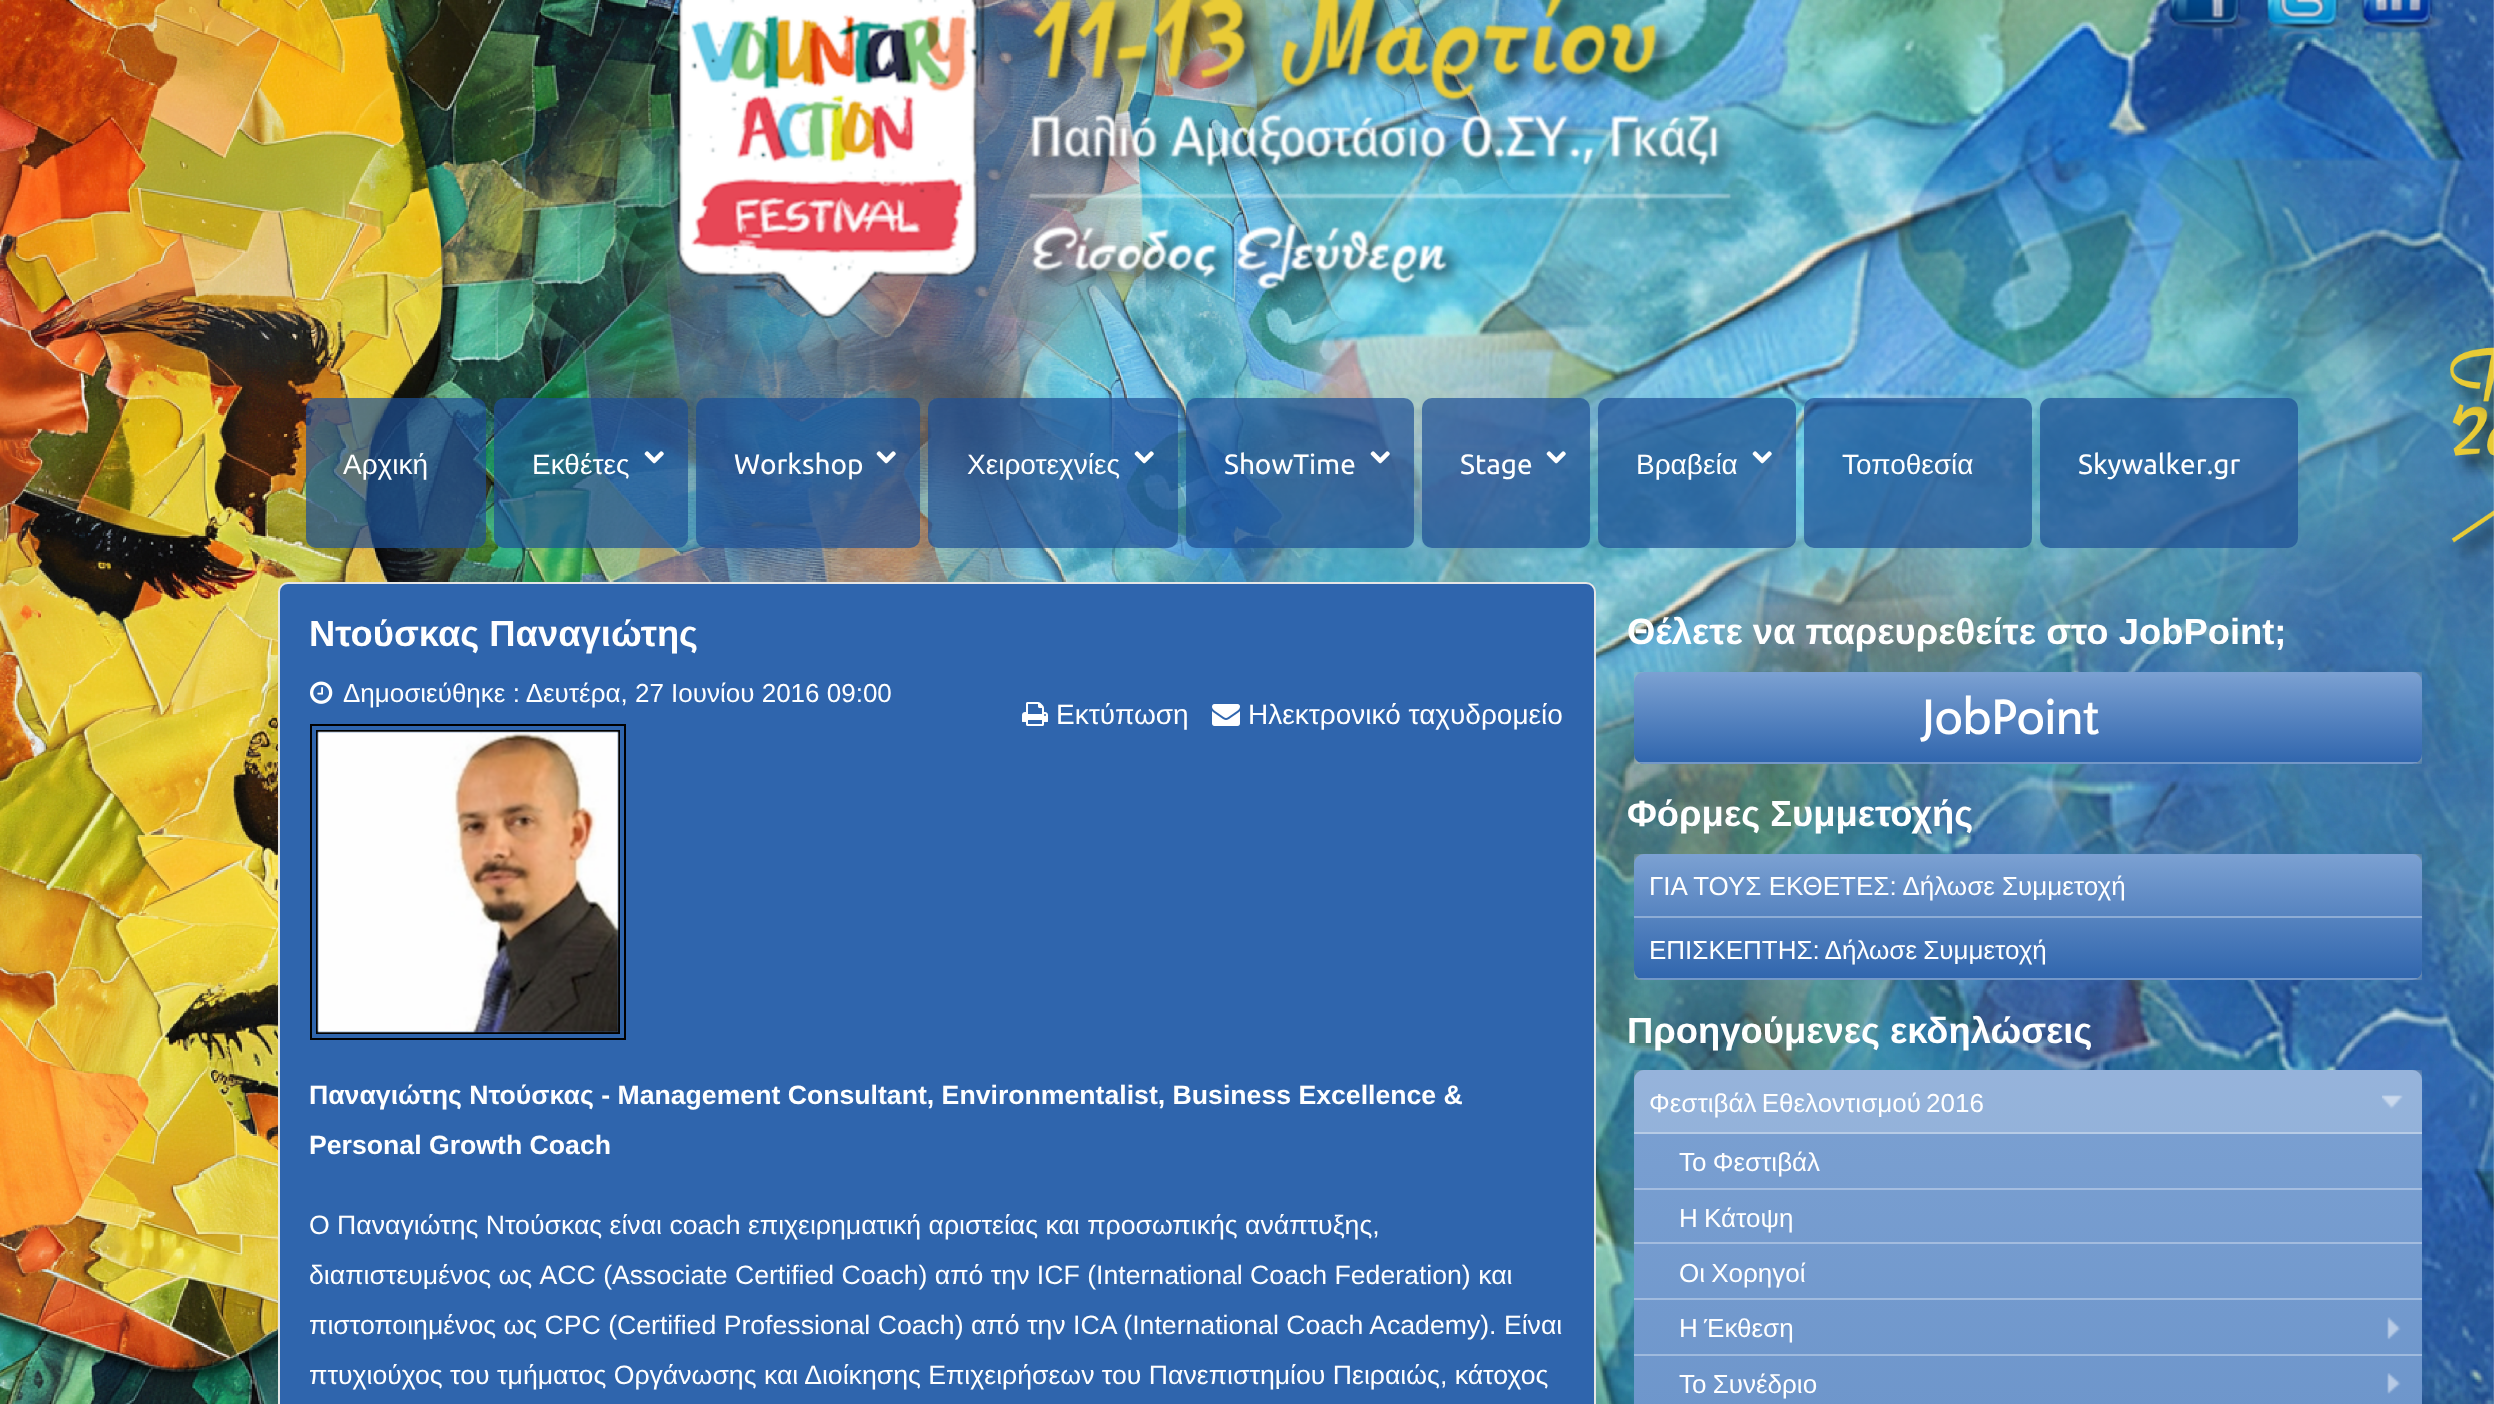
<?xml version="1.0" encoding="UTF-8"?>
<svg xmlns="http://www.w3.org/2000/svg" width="2494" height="1404">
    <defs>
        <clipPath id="clip1"><rect x="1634" y="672" width="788" height="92"/></clipPath>
        <filter id="blur1" x="-50%" y="-200%" width="200%" height="500%"><feGaussianBlur stdDeviation="5"/></filter>
        <linearGradient id="g1" gradientUnits="userSpaceOnUse" x1="1634" y1="764" x2="1634" y2="672"><stop offset="0" stop-color="#2F65AD"/><stop offset="1" stop-color="#7CA1D2"/></linearGradient>
        <clipPath id="clip2"><rect x="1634" y="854" width="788" height="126"/></clipPath>
        <linearGradient id="g2" gradientUnits="userSpaceOnUse" x1="1634" y1="980" x2="1634" y2="854"><stop offset="0" stop-color="#2F65AD"/><stop offset="1" stop-color="#7CA1D2"/></linearGradient>
        <clipPath id="clip3"><rect x="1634" y="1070" width="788" height="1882"/></clipPath>
        <linearGradient id="g3" gradientUnits="userSpaceOnUse" x1="1634" y1="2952" x2="1634" y2="1070"><stop offset="0" stop-color="#2F65AD"/><stop offset="1" stop-color="#7CA1D2"/></linearGradient>
    </defs>
    <rect width="100%" height="100%" fill="#FFFFFF"/>
    <image x="0" y="0" width="2494" height="1404" href="img_01.png"/>
    <image x="669" y="0" width="1073" height="319" href="img_02.png"/>
    <image x="2168" y="0" width="85" height="43" href="img_03.png"/>
    <image x="2265" y="0" width="85" height="44" href="img_04.png"/>
    <image x="2361" y="0" width="84" height="43" href="img_05.png"/>
    <rect x="306" y="398" width="180" height="150" rx="10" fill="#1E5096" fill-opacity="0.7"/>
    <text x="343" y="474" font-family="Liberation Sans" font-size="28" fill="#FFFFFF">Αρχική</text>
    <rect x="494" y="398" width="194" height="150" rx="10" fill="#1E5096" fill-opacity="0.7"/>
    <text x="532" y="474" font-family="Liberation Sans" font-size="28" fill="#FFFFFF">Εκθέτες</text>
    <image x="644" y="451" width="20" height="13" href="img_06.png"/>
    <rect x="696" y="398" width="224" height="150" rx="10" fill="#1E5096" fill-opacity="0.7"/>
    <text x="734" y="474" font-family="Ubuntu" font-size="28" fill="#FFFFFF">Workshop</text>
    <image x="876" y="451" width="20" height="13" href="img_07.png"/>
    <rect x="928" y="398" width="250" height="150" rx="10" fill="#1E5096" fill-opacity="0.7"/>
    <text x="967" y="474" font-family="Liberation Sans" font-size="28" fill="#FFFFFF">Χειροτεχνίες</text>
    <image x="1134" y="451" width="20" height="13" href="img_08.png"/>
    <rect x="1186" y="398" width="228" height="150" rx="10" fill="#1E5096" fill-opacity="0.7"/>
    <text x="1224" y="474" font-family="Ubuntu" font-size="28" fill="#FFFFFF">ShowTime</text>
    <image x="1370" y="451" width="20" height="13" href="img_09.png"/>
    <rect x="1422" y="398" width="168" height="150" rx="10" fill="#1E5096" fill-opacity="0.7"/>
    <text x="1460" y="474" font-family="Ubuntu" font-size="28" fill="#FFFFFF">Stage</text>
    <image x="1546" y="451" width="20" height="13" href="img_10.png"/>
    <rect x="1598" y="398" width="198" height="150" rx="10" fill="#1E5096" fill-opacity="0.7"/>
    <text x="1636" y="474" font-family="Liberation Sans" font-size="28" fill="#FFFFFF">Βραβεία</text>
    <image x="1752" y="451" width="20" height="13" href="img_11.png"/>
    <rect x="1804" y="398" width="228" height="150" rx="10" fill="#1E5096" fill-opacity="0.7"/>
    <text x="1842" y="474" font-family="Liberation Sans" font-size="28" fill="#FFFFFF">Τοποθεσία</text>
    <rect x="2040" y="398" width="258" height="150" rx="10" fill="#1E5096" fill-opacity="0.7"/>
    <text x="2078" y="474" font-family="Ubuntu" font-size="28" fill="#FFFFFF">Skywalker.gr</text>
    <rect x="279" y="583" width="1316" height="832" rx="9" fill="#2F65AD" stroke="#E6E6E6" stroke-width="2"/>
    <text x="309" y="646" font-family="Liberation Sans" font-size="36.4" font-weight="700" fill="#FFFFFF">Ντούσκας Παναγιώτης</text>
    <image x="310" y="681" width="23" height="23" href="img_12.png"/>
    <text x="343" y="702" font-family="Liberation Sans" font-size="26" fill="#FFFFFF">Δημοσιεύθηκε : Δευτέρα, 27 Ιουνίου 2016 09:00</text>
    <image x="1022" y="702" width="26" height="24" href="img_13.png"/>
    <text x="1056" y="724" font-family="Liberation Sans" font-size="28" fill="#FFFFFF">Εκτύπωση</text>
    <image x="1212" y="704" width="28" height="22" href="img_14.png"/>
    <text x="1248" y="724" font-family="Liberation Sans" font-size="28" fill="#FFFFFF">Ηλεκτρονικό ταχυδρομείο</text>
    <rect x="311" y="725" width="314" height="314" fill="none" stroke="#000000" stroke-width="2"/>
    <rect x="317" y="731" width="302" height="302" fill="none" stroke="#000000" stroke-width="2"/>
    <image x="317" y="731" width="302" height="302" href="img_15.png"/>
    <text font-family="Liberation Sans" font-size="26.65" font-weight="700" fill="#FFFFFF">
        <tspan x="309" y="1104">Παναγιώτης Ντούσκας - Management Consultant, Environmentalist, Business Excellence &amp;</tspan>
        <tspan x="309" y="1154">Personal Growth Coach</tspan>
    </text>
    <text font-family="Liberation Sans" font-size="26.65" fill="#FFFFFF">
        <tspan x="309" y="1234">Ο Παναγιώτης Ντούσκας είναι coach επιχειρηματική αριστείας και προσωπικής ανάπτυξης,</tspan>
        <tspan x="309" y="1284">διαπιστευμένος ως ACC (Associate Certified Coach) από την ICF (International Coach Federation) και</tspan>
        <tspan x="309" y="1334">πιστοποιημένος ως CPC (Certified Professional Coach) από την ICA (International Coach Academy). Είναι</tspan>
        <tspan x="309" y="1384">πτυχιούχος του τμήματος Οργάνωσης και Διοίκησης Επιχειρήσεων του Πανεπιστημίου Πειραιώς, κάτοχος</tspan>
    </text>
    <text x="1627" y="644" font-family="Liberation Sans" font-size="36.4" font-weight="700" fill="#FFFFFF">Θέλετε να παρευρεθείτε στο JobPoint;</text>
    <g clip-path="url(#clip1)">
        <rect x="1634" y="672" width="788" height="92" rx="10" fill="#BBBBBB" filter="url(#blur1)"/>
    </g>
    <rect x="1634" y="672" width="788" height="92" rx="10" fill="url(#g1)"/>
    <image x="1638" y="762" width="780" height="2" href="img_16.png"/>
    <text x="1921" y="734" font-family="Quattrocento Sans" font-size="50" font-weight="700" fill="#FFFFFF">JobPoint</text>
    <text x="1627" y="826" font-family="Liberation Sans" font-size="36.4" font-weight="700" fill="#FFFFFF">Φόρμες Συμμετοχής</text>
    <g clip-path="url(#clip2)">
        <rect x="1634" y="854" width="788" height="126" rx="10" fill="#BBBBBB" filter="url(#blur1)"/>
    </g>
    <rect x="1634" y="854" width="788" height="126" rx="10" fill="url(#g2)"/>
    <rect x="1634" y="916" width="788" height="2" fill="#8DACD4"/>
    <text x="1649" y="895" font-family="Liberation Sans" font-size="26" fill="#FFFFFF">ΓΙΑ ΤΟΥΣ ΕΚΘΕΤΕΣ: Δήλωσε Συμμετοχή</text>
    <image x="1638" y="978" width="780" height="2" href="img_17.png"/>
    <text x="1649" y="959" word-spacing="-1" font-family="Liberation Sans" font-size="26" fill="#FFFFFF">ΕΠΙΣΚΕΠΤΗΣ: Δήλωσε Συμμετοχή</text>
    <text x="1627" y="1043" font-family="Liberation Sans" font-size="36.4" font-weight="700" fill="#FFFFFF">Προηγούμενες εκδηλώσεις</text>
    <g clip-path="url(#clip3)">
        <rect x="1634" y="1070" width="788" height="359" rx="10" fill="#BBBBBB" filter="url(#blur1)"/>
    </g>
    <rect x="1634" y="1070" width="788" height="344" rx="10" fill="url(#g3)"/>
    <path d="M 1644 1070 H 2412 C 2417.5 1070 2422 1074.5 2422 1080 V 1134 H 1634 V 1080 C 1634 1074.5 1638.5 1070 1644 1070 Z" fill="#FFFFFF" fill-opacity="0.2"/>
    <rect x="1634" y="1132" width="788" height="2" fill="#B7CCE6"/>
    <image x="2382" y="1095" width="21" height="14" href="img_18.png"/>
    <text x="1649" y="1112" word-spacing="-2" font-family="Liberation Sans" font-size="26" fill="#FFFFFF">Φεστιβάλ Εθελοντισμού 2016</text>
    <rect x="1634" y="1188" width="788" height="2" fill="#A4BDE0"/>
    <text x="1679" y="1171" word-spacing="-1" font-family="Liberation Sans" font-size="26" fill="#FFFFFF">Το Φεστιβάλ</text>
    <rect x="1634" y="1242" width="788" height="2" fill="#A3BCDF"/>
    <text x="1679" y="1227" word-spacing="-1" font-family="Liberation Sans" font-size="26" fill="#FFFFFF">Η Κάτοψη</text>
    <rect x="1634" y="1298" width="788" height="2" fill="#A1BBDE"/>
    <text x="1679" y="1282" word-spacing="-1" font-family="Liberation Sans" font-size="26" fill="#FFFFFF">Οι Χορηγοί</text>
    <rect x="1634" y="1354" width="788" height="2" fill="#9FBADD"/>
    <image x="2387" y="1317" width="14" height="23" href="img_19.png"/>
    <text x="1679" y="1337" word-spacing="-1" font-family="Liberation Sans" font-size="26" fill="#FFFFFF">Η Έκθεση</text>
    <image x="2387" y="1373" width="14" height="21" href="img_20.png"/>
    <text x="1679" y="1393" word-spacing="-1" font-family="Liberation Sans" font-size="26" fill="#FFFFFF">Το Συνέδριο</text>
</svg>
